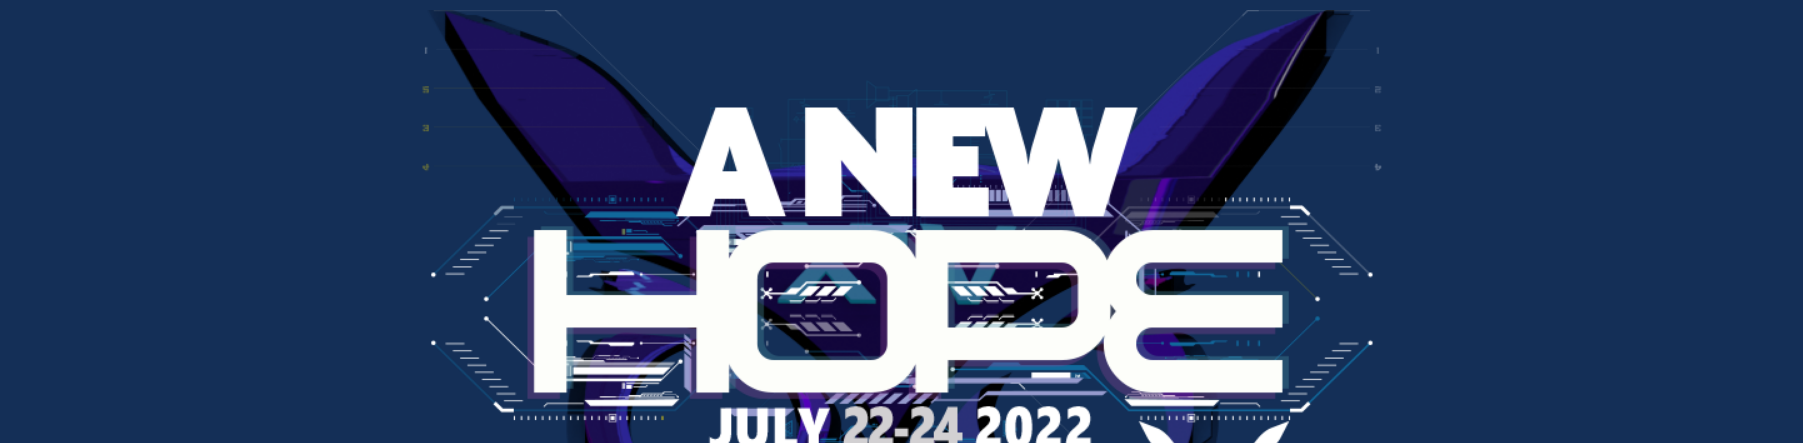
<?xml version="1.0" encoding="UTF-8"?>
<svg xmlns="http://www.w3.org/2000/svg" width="1803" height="443">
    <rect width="100%" height="100%" fill="#142F57"/>
    <image x="422" y="10" width="960" height="433" href="img_01.png"/>
</svg>
